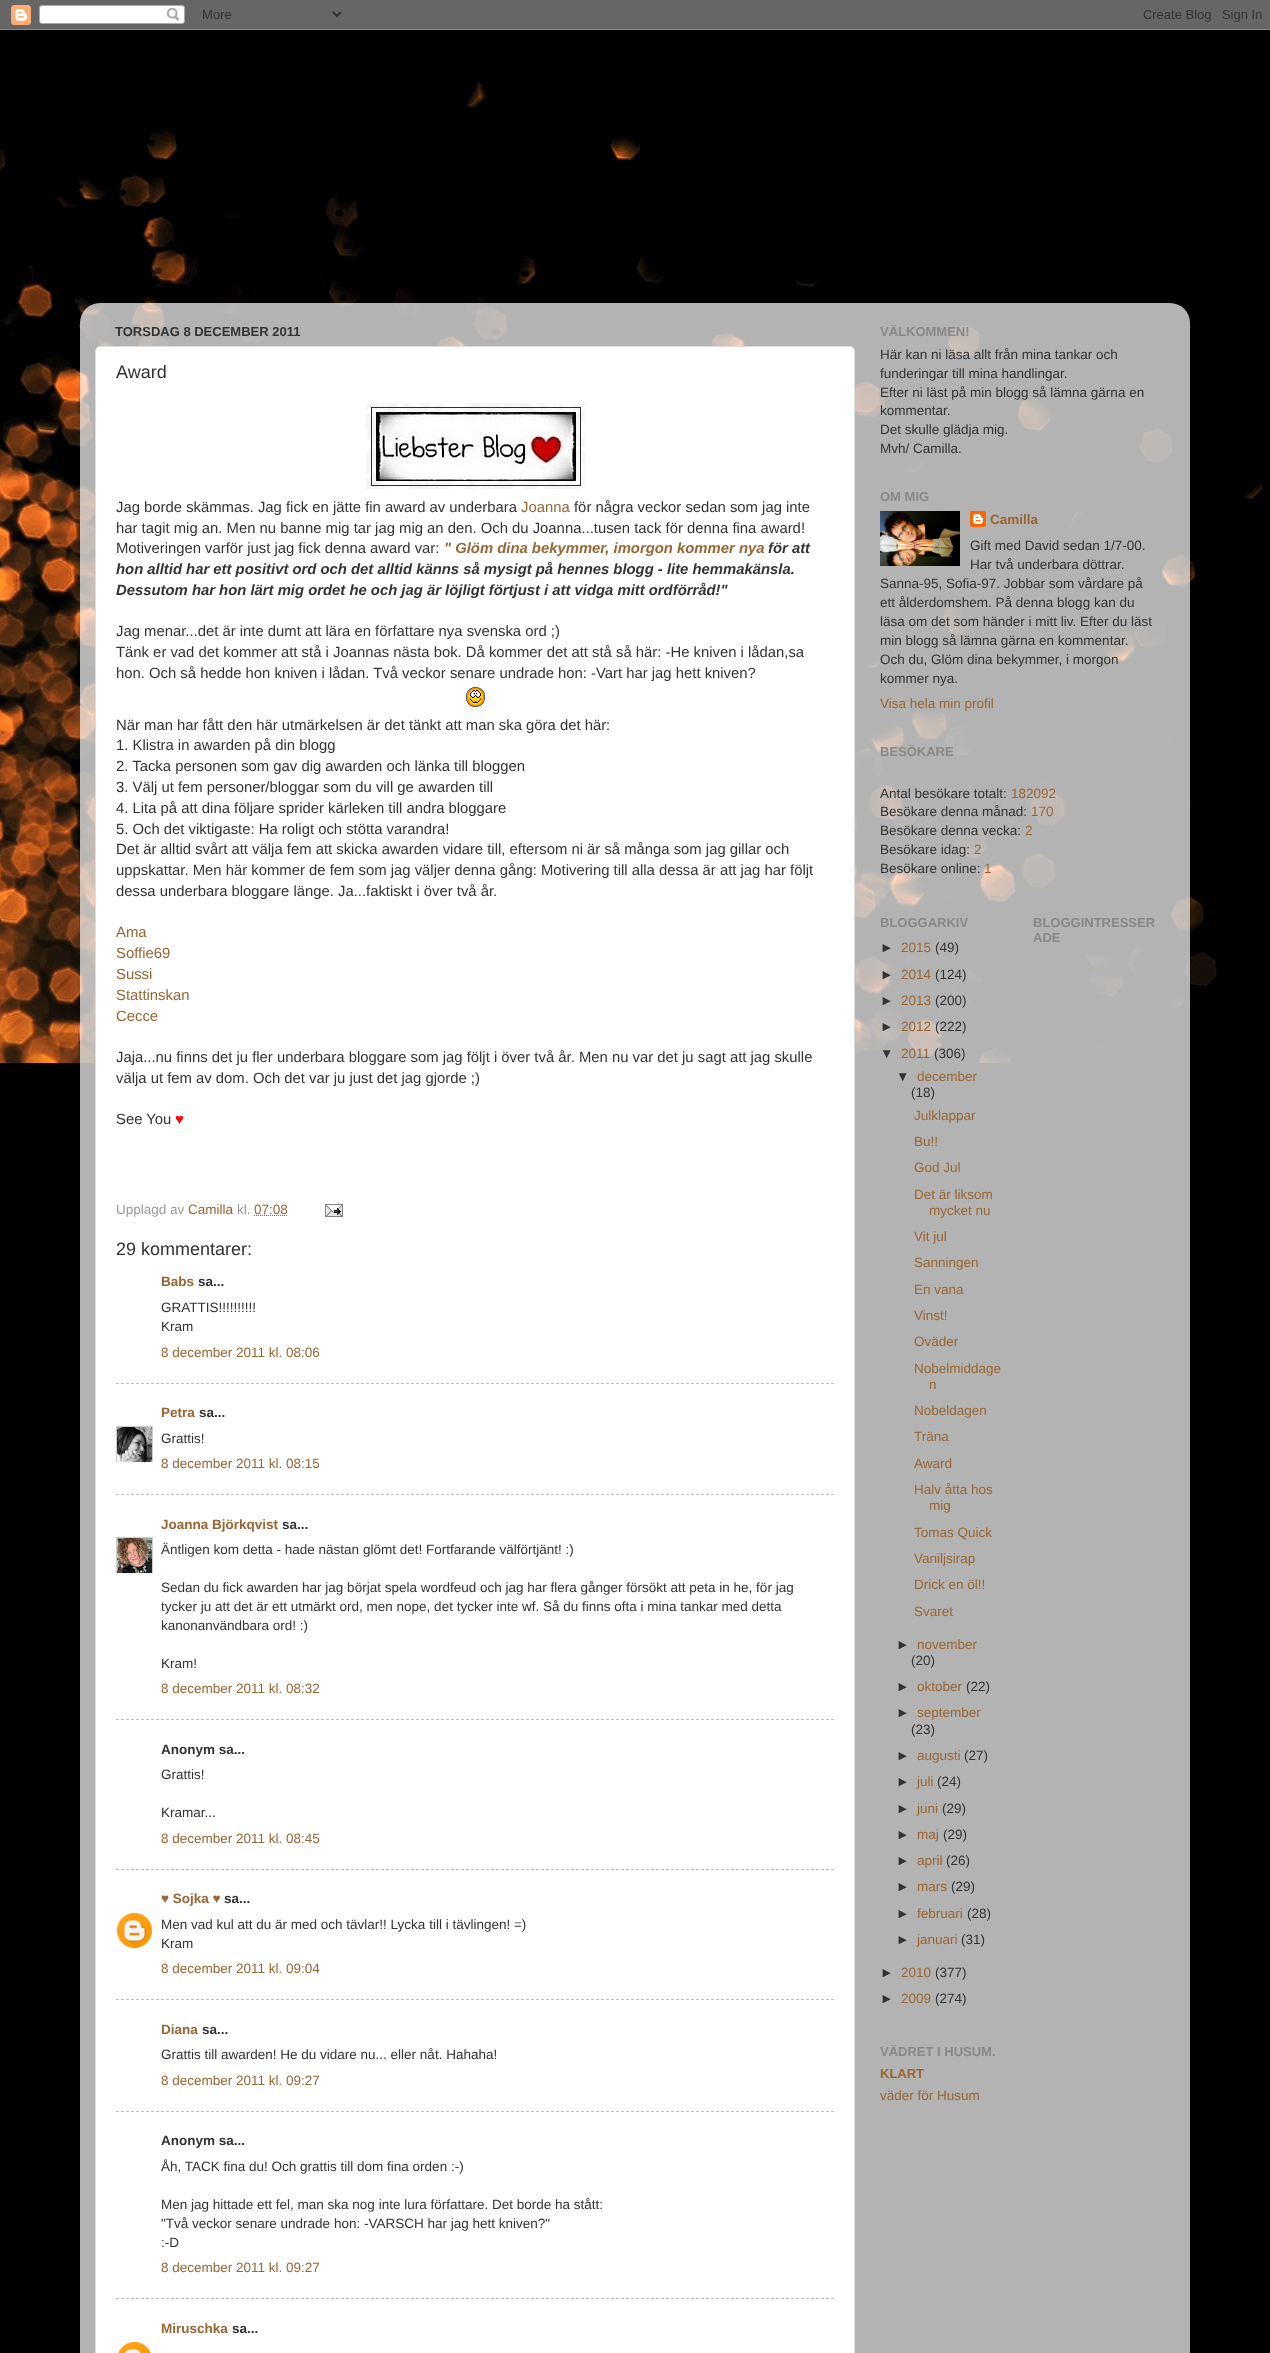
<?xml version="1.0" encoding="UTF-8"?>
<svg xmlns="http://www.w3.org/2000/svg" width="1270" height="2353">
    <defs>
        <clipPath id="clip1"><path d="M 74 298 H 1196 V 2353 H 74 Z M 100 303 H 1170 C 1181 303 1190 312 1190 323 V 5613 H 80 V 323 C 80 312 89 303 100 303 Z" clip-rule="evenodd"/></clipPath>
        <filter id="blur1" x="-50%" y="-200%" width="200%" height="500%"><feGaussianBlur stdDeviation="1.5"/></filter>
        <clipPath id="clip2"><rect x="116" y="1426" width="37" height="36"/></clipPath>
        <clipPath id="clip3"><rect x="116" y="1537" width="37" height="36"/></clipPath>
    </defs>
    <rect width="100%" height="100%" fill="#000000"/>
    <image x="0" y="82" width="1263" height="981" href="img_01.png"/>
    <image x="0" y="0" width="1270" height="30" href="img_02.png"/>
    <g clip-path="url(#clip1)">
        <rect x="80" y="304" width="1110" height="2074" rx="20" fill="#000000" fill-opacity="0.15" filter="url(#blur1)"/>
    </g>
    <image x="80" y="303" width="1110" height="2050" href="img_03.png"/>
    <text x="115" y="336" font-family="Liberation Sans" font-size="13" font-weight="700" fill="#333333">TORSDAG 8 DECEMBER 2011</text>
    <rect x="95.5" y="346.5" width="759" height="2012" rx="4.5" fill="#FFFFFF" stroke="#DDDDDD"/>
    <text x="116" y="378" font-family="Liberation Sans" font-size="18" fill="#333333">Award</text>
    <image x="366" y="403" width="219" height="87" href="img_04.png"/>
    <text x="116" y="512" font-family="Liberation Sans" font-size="14.85" fill="#333333">Jag borde skämmas. Jag fick en jätte fin award av underbara</text>
    <text x="521" y="512" font-family="Liberation Sans" font-size="14.85" fill="#996633">Joanna</text>
    <text x="574" y="512" font-family="Liberation Sans" font-size="14.85" fill="#333333">för några veckor sedan som jag inte</text>
    <text font-family="Liberation Sans" font-size="14.85" fill="#333333">
        <tspan x="116" y="533">har tagit mig an. Men nu banne mig tar jag mig an den. Och du Joanna...tusen tack för denna fina award!</tspan>
        <tspan x="116" y="553">Motiveringen varför just jag fick denna award var:</tspan>
    </text>
    <text x="444" y="553" font-family="Liberation Sans" font-size="14.85" font-weight="700" font-style="italic" fill="#996633">" Glöm dina bekymmer, imorgon kommer nya</text>
    <text x="768" y="553" font-family="Liberation Sans" font-size="14.85" font-weight="700" font-style="italic" fill="#333333">för att</text>
    <text font-family="Liberation Sans" font-size="14.85" font-weight="700" font-style="italic" fill="#333333">
        <tspan x="116" y="574">hon alltid har ett positivt ord och det alltid känns så mysigt på hennes blogg - lite hemmakänsla.</tspan>
        <tspan x="116" y="595">Dessutom har hon lärt mig ordet he och jag är löjligt förtjust i att vidga mitt ordförråd!"</tspan>
    </text>
    <text font-family="Liberation Sans" font-size="14.85" fill="#333333">
        <tspan x="116" y="636">Jag menar...det är inte dumt att lära en författare nya svenska ord ;)</tspan>
        <tspan x="116" y="657">Tänk er vad det kommer att stå i Joannas nästa bok. Då kommer det att stå så här: -He kniven i lådan,sa</tspan>
        <tspan x="116" y="678">hon. Och så hedde hon kniven i lådan. Två veckor senare undrade hon: -Vart har jag hett kniven?</tspan>
    </text>
    <image x="466" y="687" width="19" height="20" href="img_05.png"/>
    <text font-family="Liberation Sans" font-size="14.85" fill="#333333">
        <tspan x="116" y="730">När man har fått den här utmärkelsen är det tänkt att man ska göra det här:</tspan>
        <tspan x="116" y="750">1. Klistra in awarden på din blogg</tspan>
        <tspan x="116" y="771">2. Tacka personen som gav dig awarden och länka till bloggen</tspan>
        <tspan x="116" y="792">3. Välj ut fem personer/bloggar som du vill ge awarden till</tspan>
        <tspan x="116" y="813">4. Lita på att dina följare sprider kärleken till andra bloggare</tspan>
        <tspan x="116" y="834">5. Och det viktigaste: Ha roligt och stötta varandra!</tspan>
        <tspan x="116" y="854">Det är alltid svårt att välja fem att skicka awarden vidare till, eftersom ni är så många som jag gillar och</tspan>
        <tspan x="116" y="875">uppskattar. Men här kommer de fem som jag väljer denna gång: Motivering till alla dessa är att jag har följt</tspan>
        <tspan x="116" y="896">dessa underbara bloggare länge. Ja...faktiskt i över två år.</tspan>
    </text>
    <text font-family="Liberation Sans" font-size="14.85" fill="#996633">
        <tspan x="116" y="937">Ama</tspan>
        <tspan x="116" y="958">Soffie69</tspan>
        <tspan x="116" y="979">Sussi</tspan>
        <tspan x="116" y="1000">Stattinskan</tspan>
        <tspan x="116" y="1021">Cecce</tspan>
    </text>
    <text font-family="Liberation Sans" font-size="14.85" fill="#333333">
        <tspan x="116" y="1062">Jaja...nu finns det ju fler underbara bloggare som jag följt i över två år. Men nu var det ju sagt att jag skulle</tspan>
        <tspan x="116" y="1083">välja ut fem av dom. Och det var ju just det jag gjorde ;)</tspan>
    </text>
    <text x="116" y="1124" font-family="Liberation Sans" font-size="14.85" fill="#333333">See You</text>
    <text x="175" y="1124" font-family="Liberation Sans" font-size="14.85" fill="#FF0000">♥</text>
    <text x="116" y="1214" font-family="Liberation Sans" font-size="13.5" fill="#999999">Upplagd av</text>
    <text x="188" y="1214" font-family="Liberation Sans" font-size="13.5" fill="#996633">Camilla</text>
    <text x="237" y="1214" font-family="Liberation Sans" font-size="13.5" fill="#999999">kl.</text>
    <text x="254" y="1214" font-family="Liberation Sans" font-size="13.5" fill="#996633">07:08</text>
    <path d="M 254 1215.5 H 288" fill="none" stroke="#996633" stroke-dasharray="1 1"/>
    <image x="325" y="1204" width="18" height="13" href="img_06.png"/>
    <text x="116" y="1255" font-family="Liberation Sans" font-size="18" fill="#333333">29 kommentarer:</text>
    <text x="161" y="1286" font-family="Liberation Sans" font-size="13.5" font-weight="700" fill="#996633">Babs</text>
    <text x="198" y="1286" font-family="Liberation Sans" font-size="13.5" font-weight="700" fill="#333333">sa...</text>
    <text font-family="Liberation Sans" font-size="13.5" fill="#333333">
        <tspan x="161" y="1312">GRATTIS!!!!!!!!!!</tspan>
        <tspan x="161" y="1331">Kram</tspan>
    </text>
    <text x="161" y="1357" font-family="Liberation Sans" font-size="13.5" fill="#996633">8 december 2011 kl. 08:06</text>
    <path d="M 116 1383.5 H 834" fill="none" stroke="#C0C0C0" stroke-dasharray="3 2"/>
    <text x="161" y="1417" font-family="Liberation Sans" font-size="13.5" font-weight="700" fill="#996633">Petra</text>
    <text x="199" y="1417" font-family="Liberation Sans" font-size="13.5" font-weight="700" fill="#333333">sa...</text>
    <g clip-path="url(#clip2)">
        <rect x="116.5" y="1426.5" width="36" height="36" fill="none" stroke="#CCCCCC"/>
    </g>
    <image x="117" y="1427" width="35" height="35" href="img_07.png"/>
    <text x="161" y="1443" font-family="Liberation Sans" font-size="13.5" fill="#333333">Grattis!</text>
    <text x="161" y="1468" font-family="Liberation Sans" font-size="13.5" fill="#996633">8 december 2011 kl. 08:15</text>
    <path d="M 116 1494.5 H 834" fill="none" stroke="#C0C0C0" stroke-dasharray="3 2"/>
    <text x="161" y="1529" font-family="Liberation Sans" font-size="13.5" font-weight="700" fill="#996633">Joanna Björkqvist</text>
    <text x="282" y="1529" font-family="Liberation Sans" font-size="13.5" font-weight="700" fill="#333333">sa...</text>
    <g clip-path="url(#clip3)">
        <rect x="116.5" y="1537.5" width="36" height="36" fill="none" stroke="#CCCCCC"/>
    </g>
    <image x="117" y="1538" width="35" height="35" href="img_08.png"/>
    <text x="161" y="1554" font-family="Liberation Sans" font-size="13.5" fill="#333333">Äntligen kom detta - hade nästan glömt det! Fortfarande välförtjänt! :)</text>
    <text font-family="Liberation Sans" font-size="13.5" fill="#333333">
        <tspan x="161" y="1592">Sedan du fick awarden har jag börjat spela wordfeud och jag har flera gånger försökt att peta in he, för jag</tspan>
        <tspan x="161" y="1611">tycker ju att det är ett utmärkt ord, men nope, det tycker inte wf. Så du finns ofta i mina tankar med detta</tspan>
        <tspan x="161" y="1630">kanonanvändbara ord! :)</tspan>
    </text>
    <text x="161" y="1668" font-family="Liberation Sans" font-size="13.5" fill="#333333">Kram!</text>
    <text x="161" y="1693" font-family="Liberation Sans" font-size="13.5" fill="#996633">8 december 2011 kl. 08:32</text>
    <path d="M 116 1719.5 H 834" fill="none" stroke="#C0C0C0" stroke-dasharray="3 2"/>
    <text x="161" y="1754" font-family="Liberation Sans" font-size="13.5" font-weight="700" fill="#333333">Anonym sa...</text>
    <text x="161" y="1779" font-family="Liberation Sans" font-size="13.5" fill="#333333">Grattis!</text>
    <text x="161" y="1817" font-family="Liberation Sans" font-size="13.5" fill="#333333">Kramar...</text>
    <text x="161" y="1843" font-family="Liberation Sans" font-size="13.5" fill="#996633">8 december 2011 kl. 08:45</text>
    <path d="M 116 1869.5 H 834" fill="none" stroke="#C0C0C0" stroke-dasharray="3 2"/>
    <text x="161" y="1903" font-family="Liberation Sans" font-size="13.5" font-weight="700" fill="#996633">♥ Sojka ♥</text>
    <text x="224" y="1903" font-family="Liberation Sans" font-size="13.5" font-weight="700" fill="#333333">sa...</text>
    <image x="117" y="1913" width="35" height="35" href="img_09.png"/>
    <text font-family="Liberation Sans" font-size="13.5" fill="#333333">
        <tspan x="161" y="1929">Men vad kul att du är med och tävlar!! Lycka till i tävlingen! =)</tspan>
        <tspan x="161" y="1948">Kram</tspan>
    </text>
    <text x="161" y="1973" font-family="Liberation Sans" font-size="13.5" fill="#996633">8 december 2011 kl. 09:04</text>
    <path d="M 116 1999.5 H 834" fill="none" stroke="#C0C0C0" stroke-dasharray="3 2"/>
    <text x="161" y="2034" font-family="Liberation Sans" font-size="13.5" font-weight="700" fill="#996633">Diana</text>
    <text x="202" y="2034" font-family="Liberation Sans" font-size="13.5" font-weight="700" fill="#333333">sa...</text>
    <text x="161" y="2059" font-family="Liberation Sans" font-size="13.5" fill="#333333">Grattis till awarden! He du vidare nu... eller nåt. Hahaha!</text>
    <text x="161" y="2085" font-family="Liberation Sans" font-size="13.5" fill="#996633">8 december 2011 kl. 09:27</text>
    <path d="M 116 2111.5 H 834" fill="none" stroke="#C0C0C0" stroke-dasharray="3 2"/>
    <text x="161" y="2145" font-family="Liberation Sans" font-size="13.5" font-weight="700" fill="#333333">Anonym sa...</text>
    <text x="161" y="2171" font-family="Liberation Sans" font-size="13.5" fill="#333333">Åh, TACK fina du! Och grattis till dom fina orden :-)</text>
    <text font-family="Liberation Sans" font-size="13.5" fill="#333333">
        <tspan x="161" y="2209">Men jag hittade ett fel, man ska nog inte lura författare. Det borde ha stått:</tspan>
        <tspan x="161" y="2228">"Två veckor senare undrade hon: -VARSCH har jag hett kniven?"</tspan>
        <tspan x="161" y="2247">:-D</tspan>
    </text>
    <text x="161" y="2272" font-family="Liberation Sans" font-size="13.5" fill="#996633">8 december 2011 kl. 09:27</text>
    <path d="M 116 2298.5 H 834" fill="none" stroke="#C0C0C0" stroke-dasharray="3 2"/>
    <text x="161" y="2333" font-family="Liberation Sans" font-size="13.5" font-weight="700" fill="#996633">Miruschka</text>
    <text x="232" y="2333" font-family="Liberation Sans" font-size="13.5" font-weight="700" fill="#333333">sa...</text>
    <image x="118" y="2342" width="33" height="11" href="img_10.png"/>
    <text x="880" y="336" font-family="Liberation Sans" font-size="13" font-weight="700" fill="#888888">VÄLKOMMEN!</text>
    <text font-family="Liberation Sans" font-size="13.5" fill="#333333">
        <tspan x="880" y="359">Här kan ni läsa allt från mina tankar och</tspan>
        <tspan x="880" y="378">funderingar till mina handlingar.</tspan>
        <tspan x="880" y="397">Efter ni läst på min blogg så lämna gärna en</tspan>
        <tspan x="880" y="415">kommentar.</tspan>
        <tspan x="880" y="434">Det skulle glädja mig.</tspan>
        <tspan x="880" y="453">Mvh/ Camilla.</tspan>
    </text>
    <text x="880" y="501" font-family="Liberation Sans" font-size="13" font-weight="700" fill="#888888">OM MIG</text>
    <image x="880" y="511" width="80" height="55" href="img_11.png"/>
    <image x="970" y="511" width="16" height="16" href="img_12.png"/>
    <text x="990" y="524" font-family="Liberation Sans" font-size="13.5" font-weight="700" fill="#996633">Camilla</text>
    <text font-family="Liberation Sans" font-size="13.5" fill="#333333">
        <tspan x="970" y="550">Gift med David sedan 1/7-00.</tspan>
        <tspan x="970" y="569">Har två underbara döttrar.</tspan>
    </text>
    <text font-family="Liberation Sans" font-size="13.5" fill="#333333">
        <tspan x="880" y="588">Sanna-95, Sofia-97. Jobbar som vårdare på</tspan>
        <tspan x="880" y="607">ett ålderdomshem. På denna blogg kan du</tspan>
        <tspan x="880" y="626">läsa om det som händer i mitt liv. Efter du läst</tspan>
        <tspan x="880" y="645">min blogg så lämna gärna en kommentar.</tspan>
        <tspan x="880" y="664">Och du, Glöm dina bekymmer, i morgon</tspan>
        <tspan x="880" y="683">kommer nya.</tspan>
    </text>
    <text x="880" y="708" font-family="Liberation Sans" font-size="13.5" fill="#996633">Visa hela min profil</text>
    <text x="880" y="756" font-family="Liberation Sans" font-size="13" font-weight="700" fill="#888888">BESÖKARE</text>
    <text x="880" y="798" font-family="Liberation Sans" font-size="13.5" fill="#333333">Antal besökare totalt:</text>
    <text x="1011" y="798" font-family="Liberation Sans" font-size="13.5" fill="#996633">182092</text>
    <text x="880" y="816" font-family="Liberation Sans" font-size="13.5" fill="#333333">Besökare denna månad:</text>
    <text x="1031" y="816" font-family="Liberation Sans" font-size="13.5" fill="#996633">170</text>
    <text x="880" y="835" font-family="Liberation Sans" font-size="13.5" fill="#333333">Besökare denna vecka:</text>
    <text x="1025" y="835" font-family="Liberation Sans" font-size="13.5" fill="#996633">2</text>
    <text x="880" y="854" font-family="Liberation Sans" font-size="13.5" fill="#333333">Besökare idag:</text>
    <text x="974" y="854" font-family="Liberation Sans" font-size="13.5" fill="#996633">2</text>
    <text x="880" y="873" font-family="Liberation Sans" font-size="13.5" fill="#333333">Besökare online:</text>
    <text x="984" y="873" font-family="Liberation Sans" font-size="13.5" fill="#996633">1</text>
    <text x="880" y="927" font-family="Liberation Sans" font-size="13" font-weight="700" fill="#888888">BLOGGARKIV</text>
    <text x="880" y="952" font-family="Liberation Sans" font-size="13.5" fill="#333333">►</text>
    <text x="901" y="952" font-family="Liberation Sans" font-size="13.5" fill="#996633">2015</text>
    <text x="935" y="952" font-family="Liberation Sans" font-size="13.5" fill="#333333">(49)</text>
    <text x="880" y="979" font-family="Liberation Sans" font-size="13.5" fill="#333333">►</text>
    <text x="901" y="979" font-family="Liberation Sans" font-size="13.5" fill="#996633">2014</text>
    <text x="935" y="979" font-family="Liberation Sans" font-size="13.5" fill="#333333">(124)</text>
    <text x="880" y="1005" font-family="Liberation Sans" font-size="13.5" fill="#333333">►</text>
    <text x="901" y="1005" font-family="Liberation Sans" font-size="13.5" fill="#996633">2013</text>
    <text x="935" y="1005" font-family="Liberation Sans" font-size="13.5" fill="#333333">(200)</text>
    <text x="880" y="1031" font-family="Liberation Sans" font-size="13.5" fill="#333333">►</text>
    <text x="901" y="1031" font-family="Liberation Sans" font-size="13.5" fill="#996633">2012</text>
    <text x="935" y="1031" font-family="Liberation Sans" font-size="13.5" fill="#333333">(222)</text>
    <text x="880" y="1058" font-family="Liberation Sans" font-size="13.5" fill="#333333">▼</text>
    <text x="901" y="1058" font-family="Liberation Sans" font-size="13.5" fill="#996633">2011</text>
    <text x="934" y="1058" font-family="Liberation Sans" font-size="13.5" fill="#333333">(306)</text>
    <text x="896" y="1081" font-family="Liberation Sans" font-size="13.5" fill="#333333">▼</text>
    <text x="917" y="1081" font-family="Liberation Sans" font-size="13.5" fill="#996633">december</text>
    <text x="911" y="1097" font-family="Liberation Sans" font-size="13.5" fill="#333333">(18)</text>
    <text font-family="Liberation Sans" font-size="13.5" fill="#996633">
        <tspan x="914" y="1120">Julklappar</tspan>
        <tspan x="914" y="1146">Bu!!</tspan>
        <tspan x="914" y="1172">God Jul</tspan>
    </text>
    <text x="914" y="1199" font-family="Liberation Sans" font-size="13.5" fill="#996633">Det är liksom</text>
    <text x="929" y="1215" font-family="Liberation Sans" font-size="13.5" fill="#996633">mycket nu</text>
    <text font-family="Liberation Sans" font-size="13.5" fill="#996633">
        <tspan x="914" y="1241">Vit jul</tspan>
        <tspan x="914" y="1267">Sanningen</tspan>
    </text>
    <text font-family="Liberation Sans" font-size="13.5" fill="#996633">
        <tspan x="914" y="1294">En vana</tspan>
        <tspan x="914" y="1320">Vinst!</tspan>
        <tspan x="914" y="1346">Oväder</tspan>
    </text>
    <text x="914" y="1373" font-family="Liberation Sans" font-size="13.5" fill="#996633">Nobelmiddage</text>
    <text x="929" y="1389" font-family="Liberation Sans" font-size="13.5" fill="#996633">n</text>
    <text font-family="Liberation Sans" font-size="13.5" fill="#996633">
        <tspan x="914" y="1415">Nobeldagen</tspan>
        <tspan x="914" y="1441">Träna</tspan>
    </text>
    <text font-family="Liberation Sans" font-size="13.5" fill="#996633">
        <tspan x="914" y="1468">Award</tspan>
        <tspan x="914" y="1494">Halv åtta hos</tspan>
    </text>
    <text x="929" y="1510" font-family="Liberation Sans" font-size="13.5" fill="#996633">mig</text>
    <text font-family="Liberation Sans" font-size="13.5" fill="#996633">
        <tspan x="914" y="1537">Tomas Quick</tspan>
        <tspan x="914" y="1563">Vaniljsirap</tspan>
        <tspan x="914" y="1589">Drick en öl!!</tspan>
    </text>
    <text x="914" y="1616" font-family="Liberation Sans" font-size="13.5" fill="#996633">Svaret</text>
    <text x="896" y="1649" font-family="Liberation Sans" font-size="13.5" fill="#333333">►</text>
    <text x="917" y="1649" font-family="Liberation Sans" font-size="13.5" fill="#996633">november</text>
    <text x="911" y="1665" font-family="Liberation Sans" font-size="13.5" fill="#333333">(20)</text>
    <text x="896" y="1691" font-family="Liberation Sans" font-size="13.5" fill="#333333">►</text>
    <text x="917" y="1691" font-family="Liberation Sans" font-size="13.5" fill="#996633">oktober</text>
    <text x="966" y="1691" font-family="Liberation Sans" font-size="13.5" fill="#333333">(22)</text>
    <text x="896" y="1717" font-family="Liberation Sans" font-size="13.5" fill="#333333">►</text>
    <text x="917" y="1717" font-family="Liberation Sans" font-size="13.5" fill="#996633">september</text>
    <text x="911" y="1734" font-family="Liberation Sans" font-size="13.5" fill="#333333">(23)</text>
    <text x="896" y="1760" font-family="Liberation Sans" font-size="13.5" fill="#333333">►</text>
    <text x="917" y="1760" font-family="Liberation Sans" font-size="13.5" fill="#996633">augusti</text>
    <text x="964" y="1760" font-family="Liberation Sans" font-size="13.5" fill="#333333">(27)</text>
    <text x="896" y="1786" font-family="Liberation Sans" font-size="13.5" fill="#333333">►</text>
    <text x="917" y="1786" font-family="Liberation Sans" font-size="13.5" fill="#996633">juli</text>
    <text x="937" y="1786" font-family="Liberation Sans" font-size="13.5" fill="#333333">(24)</text>
    <text x="896" y="1813" font-family="Liberation Sans" font-size="13.5" fill="#333333">►</text>
    <text x="917" y="1813" font-family="Liberation Sans" font-size="13.5" fill="#996633">juni</text>
    <text x="942" y="1813" font-family="Liberation Sans" font-size="13.5" fill="#333333">(29)</text>
    <text x="896" y="1839" font-family="Liberation Sans" font-size="13.5" fill="#333333">►</text>
    <text x="917" y="1839" font-family="Liberation Sans" font-size="13.5" fill="#996633">maj</text>
    <text x="943" y="1839" font-family="Liberation Sans" font-size="13.5" fill="#333333">(29)</text>
    <text x="896" y="1865" font-family="Liberation Sans" font-size="13.5" fill="#333333">►</text>
    <text x="917" y="1865" font-family="Liberation Sans" font-size="13.5" fill="#996633">april</text>
    <text x="946" y="1865" font-family="Liberation Sans" font-size="13.5" fill="#333333">(26)</text>
    <text x="896" y="1891" font-family="Liberation Sans" font-size="13.5" fill="#333333">►</text>
    <text x="917" y="1891" font-family="Liberation Sans" font-size="13.5" fill="#996633">mars</text>
    <text x="951" y="1891" font-family="Liberation Sans" font-size="13.5" fill="#333333">(29)</text>
    <text x="896" y="1918" font-family="Liberation Sans" font-size="13.5" fill="#333333">►</text>
    <text x="917" y="1918" font-family="Liberation Sans" font-size="13.5" fill="#996633">februari</text>
    <text x="967" y="1918" font-family="Liberation Sans" font-size="13.5" fill="#333333">(28)</text>
    <text x="896" y="1944" font-family="Liberation Sans" font-size="13.5" fill="#333333">►</text>
    <text x="917" y="1944" font-family="Liberation Sans" font-size="13.5" fill="#996633">januari</text>
    <text x="961" y="1944" font-family="Liberation Sans" font-size="13.5" fill="#333333">(31)</text>
    <text x="880" y="1977" font-family="Liberation Sans" font-size="13.5" fill="#333333">►</text>
    <text x="901" y="1977" font-family="Liberation Sans" font-size="13.5" fill="#996633">2010</text>
    <text x="935" y="1977" font-family="Liberation Sans" font-size="13.5" fill="#333333">(377)</text>
    <text x="880" y="2003" font-family="Liberation Sans" font-size="13.5" fill="#333333">►</text>
    <text x="901" y="2003" font-family="Liberation Sans" font-size="13.5" fill="#996633">2009</text>
    <text x="935" y="2003" font-family="Liberation Sans" font-size="13.5" fill="#333333">(274)</text>
    <text font-family="Liberation Sans" font-size="13" font-weight="700" fill="#888888">
        <tspan x="1033" y="927">BLOGGINTRESSER</tspan>
        <tspan x="1033" y="942">ADE</tspan>
    </text>
    <text x="880" y="2056" font-family="Liberation Sans" font-size="13" font-weight="700" fill="#888888">VÄDRET I HUSUM.</text>
    <text x="880" y="2078" font-family="Liberation Sans" font-size="13" font-weight="700" fill="#996633">KLART</text>
    <text x="880" y="2100" font-family="Liberation Sans" font-size="13.5" fill="#996633">väder för Husum</text>
</svg>
